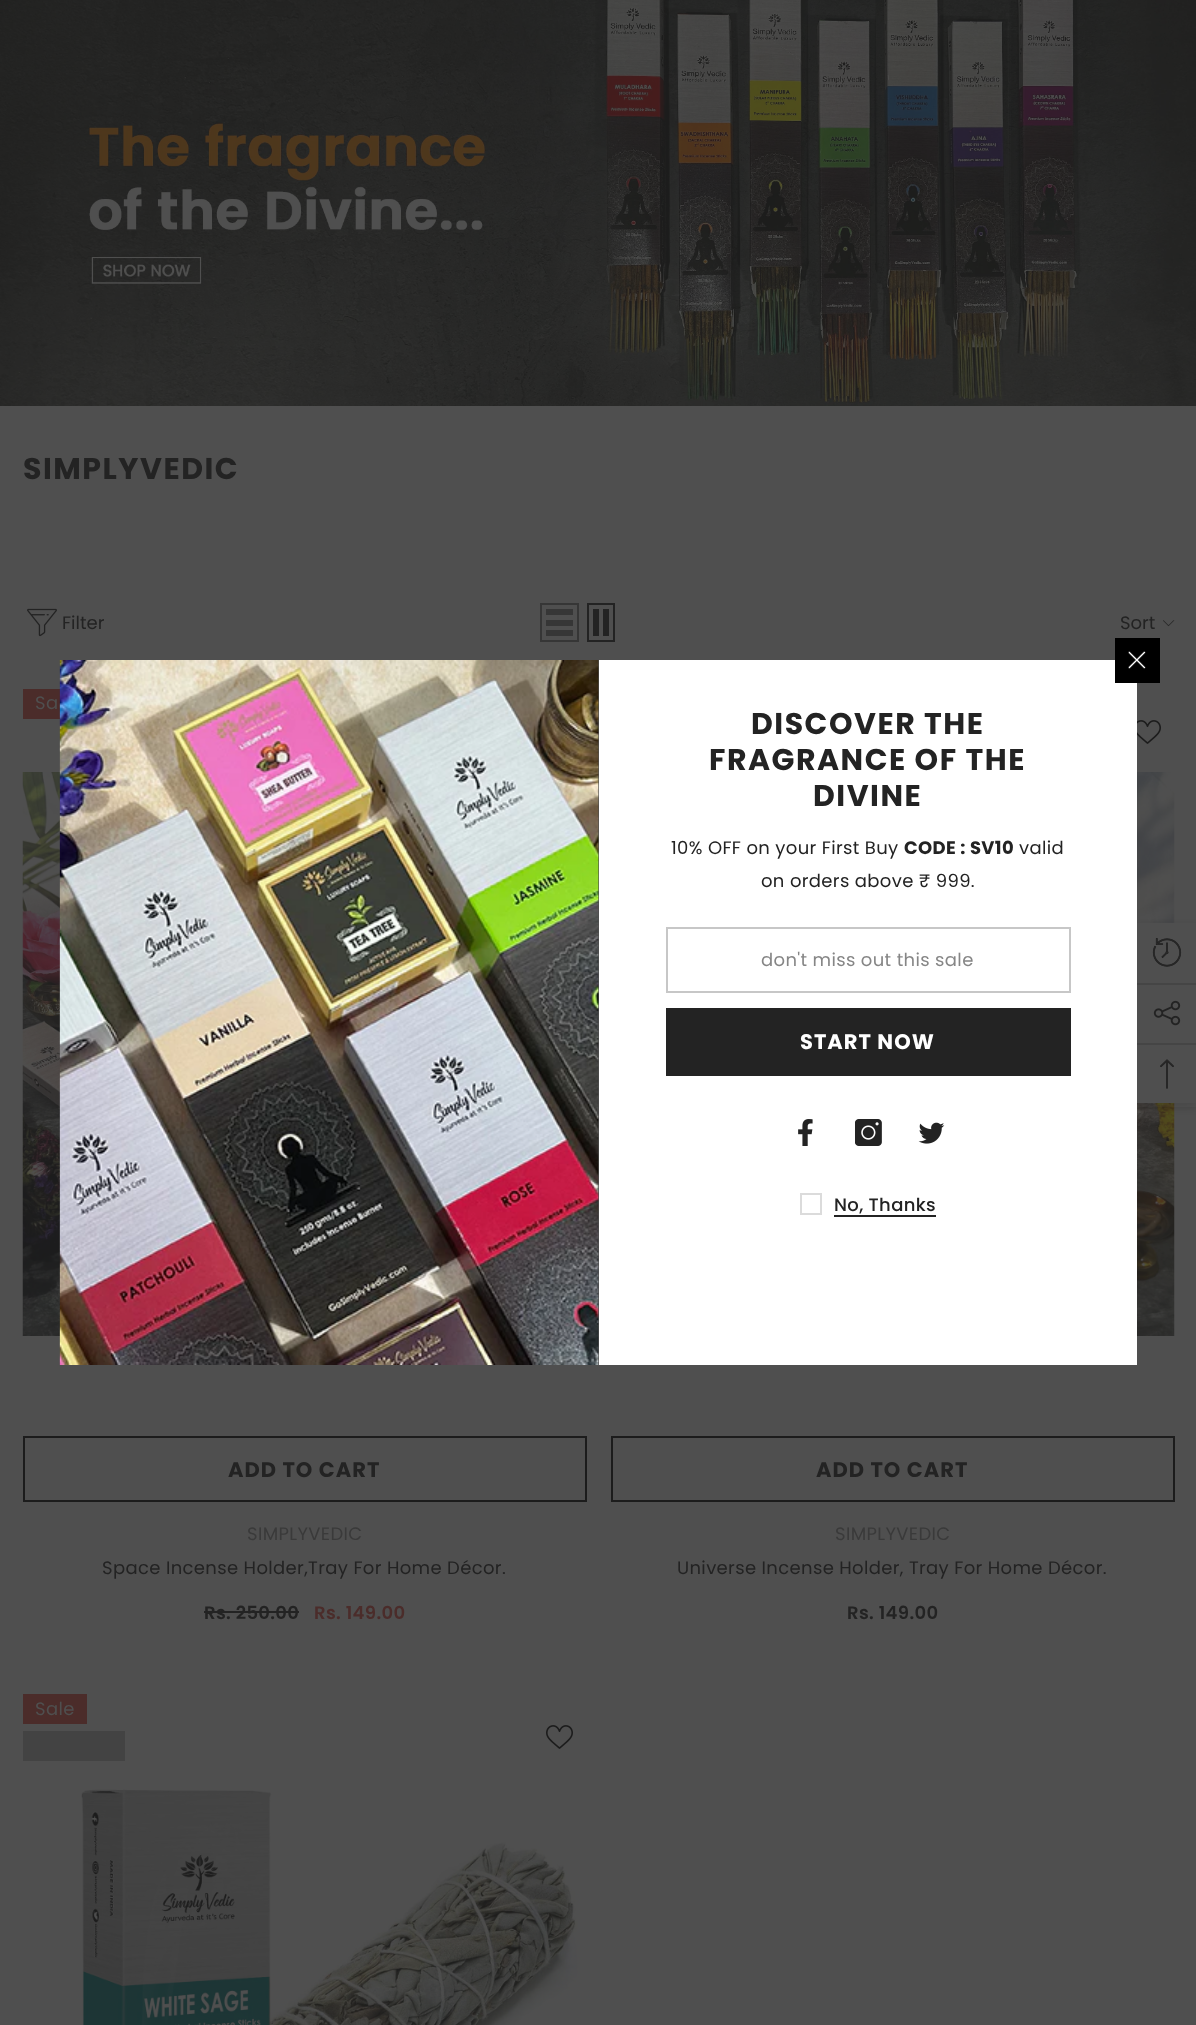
<?xml version="1.0" encoding="UTF-8"?>
<svg xmlns="http://www.w3.org/2000/svg" width="1196" height="2025">
    <defs>
        <filter id="blur1" x="-50%" y="-200%" width="200%" height="500%"><feGaussianBlur stdDeviation="5"/></filter>
    </defs>
    <rect width="100%" height="100%" fill="#4F4F4F"/>
    <image x="0" y="0" width="1196" height="406" href="img_01.png"/>
    <text x="23" y="479" font-family="Poppins" font-size="30" font-weight="700" letter-spacing="1.5" fill="#232323">SIMPLYVEDIC</text>
    <image x="27" y="608" width="30" height="29" href="img_02.png"/>
    <text x="62" y="629" font-family="Poppins" font-size="18" fill="#232323">Filter</text>
    <rect x="541" y="604" width="37" height="37" fill="none" stroke="#363636" stroke-width="2"/>
    <rect x="546" y="630" width="27" height="6" fill="#363636"/>
    <rect x="546" y="620" width="27" height="6" fill="#363636"/>
    <rect x="546" y="609" width="27" height="6" fill="#363636"/>
    <rect x="588" y="604" width="26" height="37" fill="none" stroke="#232323" stroke-width="2"/>
    <rect x="603" y="609" width="6" height="27" fill="#232323"/>
    <rect x="593" y="609" width="6" height="27" fill="#232323"/>
    <text x="1120" y="629" font-family="Poppins" font-size="18" fill="#232323">Sort</text>
    <image x="1163" y="620" width="12" height="7" href="img_03.png"/>
    <rect x="23" y="689" width="37" height="30" fill="#4B2C2A"/>
    <text x="35" y="709" font-family="Poppins" font-size="18" letter-spacing="0.35" fill="#4F4F4F">Sa</text>
    <image x="22" y="772" width="38" height="564" href="img_04.png"/>
    <rect x="24" y="1437" width="562" height="64" fill="none" stroke="#1C1C1C" stroke-width="2"/>
    <text x="228" y="1477" font-family="Poppins" font-size="21" font-weight="700" letter-spacing="1" fill="#232323">ADD TO CART</text>
    <text x="247" y="1540" font-family="Poppins" font-size="18" letter-spacing="0.35" fill="#3A3A3A">SIMPLYVEDIC</text>
    <text x="102" y="1574" font-family="Poppins" font-size="18" letter-spacing="0.35" fill="#232323">Space Incense Holder,Tray For Home Décor.</text>
    <text x="204" y="1619" font-family="Poppins" font-size="18" font-weight="600" letter-spacing="0.35" fill="#232323">Rs. 250.00</text>
    <rect x="204" y="1611" width="95" height="2" fill="#232323"/>
    <text x="314" y="1619" font-family="Poppins" font-size="18" font-weight="600" letter-spacing="0.35" fill="#4B2C2A">Rs. 149.00</text>
    <image x="1137" y="720" width="24" height="24" href="img_05.png"/>
    <image x="1137" y="772" width="38" height="564" href="img_06.png"/>
    <rect x="612" y="1437" width="562" height="64" fill="none" stroke="#1C1C1C" stroke-width="2"/>
    <text x="816" y="1477" font-family="Poppins" font-size="21" font-weight="700" letter-spacing="1" fill="#232323">ADD TO CART</text>
    <text x="835" y="1540" font-family="Poppins" font-size="18" letter-spacing="0.35" fill="#3A3A3A">SIMPLYVEDIC</text>
    <text x="677" y="1574" font-family="Poppins" font-size="18" letter-spacing="0.35" fill="#232323">Universe Incense Holder, Tray For Home Décor.</text>
    <text x="847" y="1619" font-family="Poppins" font-size="18" font-weight="600" letter-spacing="0.35" fill="#232323">Rs. 149.00</text>
    <rect x="23" y="1694" width="64" height="30" fill="#4B2C2A"/>
    <text x="35" y="1715" font-family="Poppins" font-size="18" letter-spacing="0.35" fill="#4F4F4F">Sale</text>
    <rect x="23" y="1731" width="102" height="30" fill="#434343"/>
    <image x="546" y="1725" width="27" height="24" href="img_07.png"/>
    <image x="81" y="1789" width="497" height="236" href="img_08.png"/>
    <image x="59" y="660" width="540" height="705" href="img_09.png"/>
    <rect x="1137" y="927" width="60" height="180" fill="#1C1C1C" fill-opacity="0.2" filter="url(#blur1)"/>
    <rect x="599" y="660" width="538" height="705" fill="#FFFFFF"/>
    <rect x="1115" y="638" width="45" height="45" fill="#000000"/>
    <image x="1128" y="651" width="18" height="18" href="img_10.png"/>
    <text x="751" y="734" font-family="Poppins" font-size="30" font-weight="700" letter-spacing="1.5" fill="#232323">DISCOVER THE</text>
    <text x="709" y="770" font-family="Poppins" font-size="30" font-weight="700" letter-spacing="1.5" fill="#232323">FRAGRANCE OF THE</text>
    <text x="813" y="806" font-family="Poppins" font-size="30" font-weight="700" letter-spacing="1.5" fill="#232323">DIVINE</text>
    <text x="671" y="854" font-family="Poppins" font-size="18" letter-spacing="0.35" fill="#232323">10% OFF on your First Buy</text>
    <text x="904" y="854" font-family="Poppins" font-size="18" font-weight="700" letter-spacing="0.35" fill="#232323">CODE : SV10</text>
    <text x="1019" y="854" font-family="Poppins" font-size="18" letter-spacing="0.35" fill="#232323">valid</text>
    <text x="761" y="887" font-family="Poppins" font-size="18" letter-spacing="0.35" fill="#232323">on orders above ₹ 999.</text>
    <rect x="667" y="928" width="403" height="64" fill="none" stroke="#C7C7C7" stroke-width="2"/>
    <text x="761" y="966" font-family="Poppins" font-size="18" letter-spacing="0.35" fill="#868686">don't miss out this sale</text>
    <rect x="666" y="1008" width="405" height="68" fill="#232323"/>
    <text x="800" y="1049" font-family="Poppins" font-size="21" font-weight="700" letter-spacing="1" fill="#FFFFFF">START NOW</text>
    <image x="798" y="1119" width="15" height="27" href="img_11.png"/>
    <image x="855" y="1119" width="27" height="27" href="img_12.png"/>
    <image x="918" y="1122" width="27" height="22" href="img_13.png"/>
    <rect x="801" y="1194" width="20" height="20" fill="none" stroke="#DBDBDB" stroke-width="2"/>
    <text x="834" y="1211" font-family="Poppins" font-size="18" font-weight="500" letter-spacing="0.35" fill="#232323">No, Thanks</text>
    <rect x="834" y="1215" width="102" height="2" fill="#232323"/>
    <rect x="1137" y="923" width="59" height="180" fill="#4F4F4F"/>
    <image x="1152" y="938" width="30" height="29" href="img_14.png"/>
    <rect x="1137" y="983" width="59" height="2" fill="#454545"/>
    <image x="1153" y="1000" width="28" height="26" href="img_15.png"/>
    <rect x="1137" y="1043" width="59" height="2" fill="#454545"/>
    <image x="1160" y="1059" width="14" height="30" href="img_16.png"/>
</svg>
